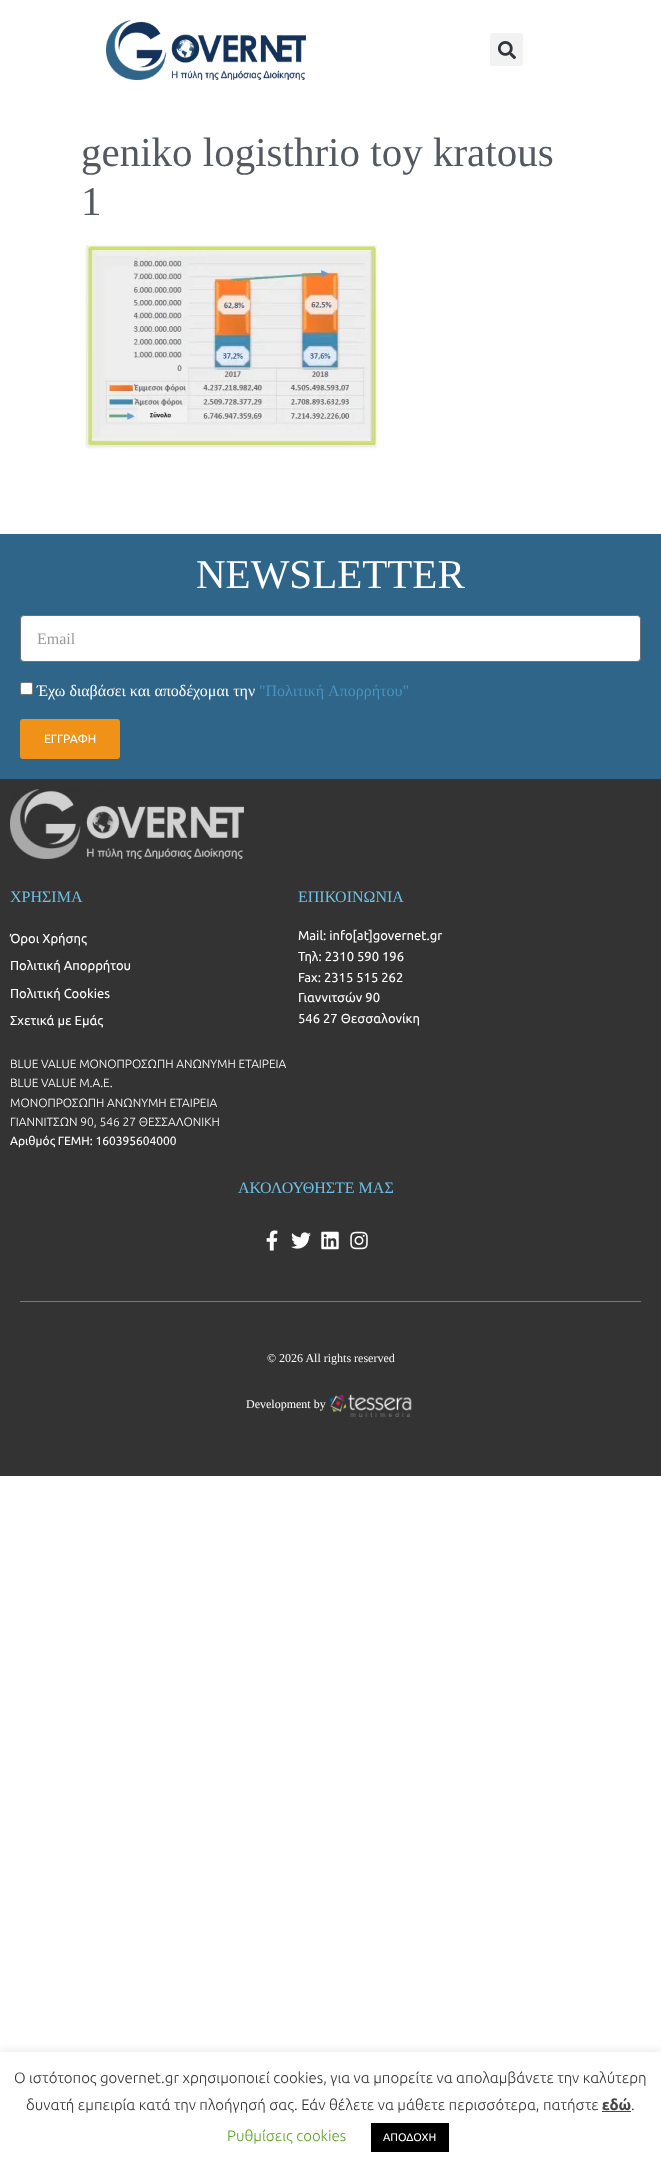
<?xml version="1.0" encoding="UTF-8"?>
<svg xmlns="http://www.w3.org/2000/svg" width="661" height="2169">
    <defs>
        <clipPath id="clip1"><rect x="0" y="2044" width="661" height="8"/></clipPath>
        <filter id="blur1" x="-50%" y="-200%" width="200%" height="500%"><feGaussianBlur stdDeviation="5"/></filter>
    </defs>
    <rect width="100%" height="100%" fill="#FFFFFF"/>
    <image x="106" y="20" width="200" height="60" href="img_01.png"/>
    <rect x="490" y="33" width="33" height="33" rx="3" fill="#F2F2F2"/>
    <image x="497" y="41" width="19" height="19" href="img_02.png"/>
    <text font-family="Tinos" font-size="41" fill="#54595F">
        <tspan x="81" y="166">geniko logisthrio toy kratous</tspan>
        <tspan x="81" y="215">1</tspan>
    </text>
    <image x="81" y="242" width="297" height="208" href="img_03.png"/>
    <rect x="0" y="534" width="661" height="245" fill="#2E6588"/>
    <text x="196" y="588" font-family="Tinos" font-size="41" fill="#FFFFFF">NEWSLETTER</text>
    <rect x="20.5" y="615.5" width="620" height="46" rx="3.5" fill="#FFFFFF" stroke="#69727D"/>
    <text x="37" y="644" font-family="Tinos" font-size="16" fill="#989B9F">Email</text>
    <rect x="20.5" y="682.5" width="12" height="12" rx="1.5" fill="#FFFFFF" stroke="#767676"/>
    <text x="37" y="696" font-family="Tinos" font-size="16" fill="#FFFFFF">Έχω διαβάσει και αποδέχομαι την</text>
    <text x="259" y="696" font-family="Tinos" font-size="16" fill="#4893C3">"Πολιτική Απορρήτου"</text>
    <rect x="20" y="719" width="100" height="40" rx="3" fill="#F09217"/>
    <text x="44" y="743" font-family="Ubuntu" font-size="12" fill="#FFFFFF">ΕΓΓΡΑΦΗ</text>
    <rect x="0" y="779" width="661" height="697" fill="#333333"/>
    <image x="10" y="789" width="234" height="70" href="img_04.png"/>
    <text x="10" y="902" font-family="Tinos" font-size="16" fill="#6EC1E4">ΧΡΗΣΙΜΑ</text>
    <text x="10" y="943" font-family="Ubuntu" font-size="13" fill="#FFFFFF">Όροι Χρήσης</text>
    <text x="10" y="970" font-family="Ubuntu" font-size="13" fill="#FFFFFF">Πολιτική Απορρήτου</text>
    <text x="10" y="998" font-family="Ubuntu" font-size="13" fill="#FFFFFF">Πολιτική Cookies</text>
    <text x="10" y="1025" font-family="Ubuntu" font-size="13" fill="#FFFFFF">Σχετικά με Εμάς</text>
    <text font-family="Ubuntu" font-size="12" font-weight="300" fill="#FFFFFF">
        <tspan x="10" y="1068">BLUE VALUE ΜΟΝΟΠΡΟΣΩΠΗ ΑΝΩΝΥΜΗ ΕΤΑΙΡΕΙΑ</tspan>
        <tspan x="10" y="1087">BLUE VALUE Μ.Α.Ε.</tspan>
        <tspan x="10" y="1107">ΜΟΝΟΠΡΟΣΩΠΗ ΑΝΩΝΥΜΗ ΕΤΑΙΡΕΙΑ</tspan>
        <tspan x="10" y="1126">ΓΙΑΝΝΙΤΣΩΝ 90, 546 27 ΘΕΣΣΑΛΟΝΙΚΗ</tspan>
    </text>
    <text x="10" y="1145" font-family="Ubuntu" font-size="12" fill="#FFFFFF">Αριθμός ΓΕΜΗ: 160395604000</text>
    <text x="298" y="902" font-family="Tinos" font-size="16" fill="#6EC1E4">ΕΠΙΚΟΙΝΩΝΙΑ</text>
    <text font-family="Ubuntu" font-size="13" fill="#FFFFFF">
        <tspan x="298" y="940">Mail: info[at]governet.gr</tspan>
        <tspan x="298" y="961">Τηλ: 2310 590 196</tspan>
        <tspan x="298" y="982">Fax: 2315 515 262</tspan>
        <tspan x="298" y="1002">Γιαννιτσών 90</tspan>
        <tspan x="298" y="1023">546 27 Θεσσαλονίκη</tspan>
    </text>
    <text x="238" y="1193" font-family="Tinos" font-size="16" fill="#6EC1E4">ΑΚΟΛΟΥΘΗΣΤΕ ΜΑΣ</text>
    <image x="266" y="1230" width="12" height="21" href="img_05.png"/>
    <image x="291" y="1232" width="20" height="17" href="img_06.png"/>
    <image x="321" y="1231" width="18" height="19" href="img_07.png"/>
    <image x="350" y="1231" width="18" height="19" href="img_08.png"/>
    <rect x="20" y="1301" width="621" height="1" fill="#7A7A7A"/>
    <text x="267" y="1362" font-family="Tinos" font-size="12" fill="#F6F7F7">© 2026 All rights reserved</text>
    <text x="246" y="1408" font-family="Tinos" font-size="12" fill="#FFFFFF">Development by</text>
    <image x="329" y="1394" width="83" height="23" href="img_09.png"/>
    <g clip-path="url(#clip1)">
        <rect x="0" y="2051" width="661" height="117" fill="#ACABAB" fill-opacity="0.3" filter="url(#blur1)"/>
    </g>
    <text x="14" y="2083" font-family="Ubuntu" font-size="15" font-weight="300" fill="#333333">Ο ιστότοπος governet.gr χρησιμοποιεί cookies, για να μπορείτε να απολαμβάνετε την καλύτερη</text>
    <text x="26" y="2110" font-family="Ubuntu" font-size="15" font-weight="300" fill="#333333">δυνατή εμπειρία κατά την πλοήγησή σας. Εάν θέλετε να μάθετε περισσότερα, πατήστε</text>
    <text x="602" y="2110" font-family="Ubuntu" font-size="15" font-weight="700" fill="#444444">εδώ</text>
    <rect x="602" y="2111" width="29" height="1" fill="#444444"/>
    <text x="631" y="2110" font-family="Ubuntu" font-size="15" font-weight="300" fill="#333333">.</text>
    <text x="227" y="2141" font-family="Ubuntu" font-size="15" font-weight="300" fill="#62A329">Ρυθμίσεις cookies</text>
    <rect x="371" y="2123" width="78" height="29" fill="#000000"/>
    <text x="383" y="2141" font-family="Ubuntu" font-size="11" fill="#FFFFFF">ΑΠΟΔΟΧΗ</text>
</svg>
